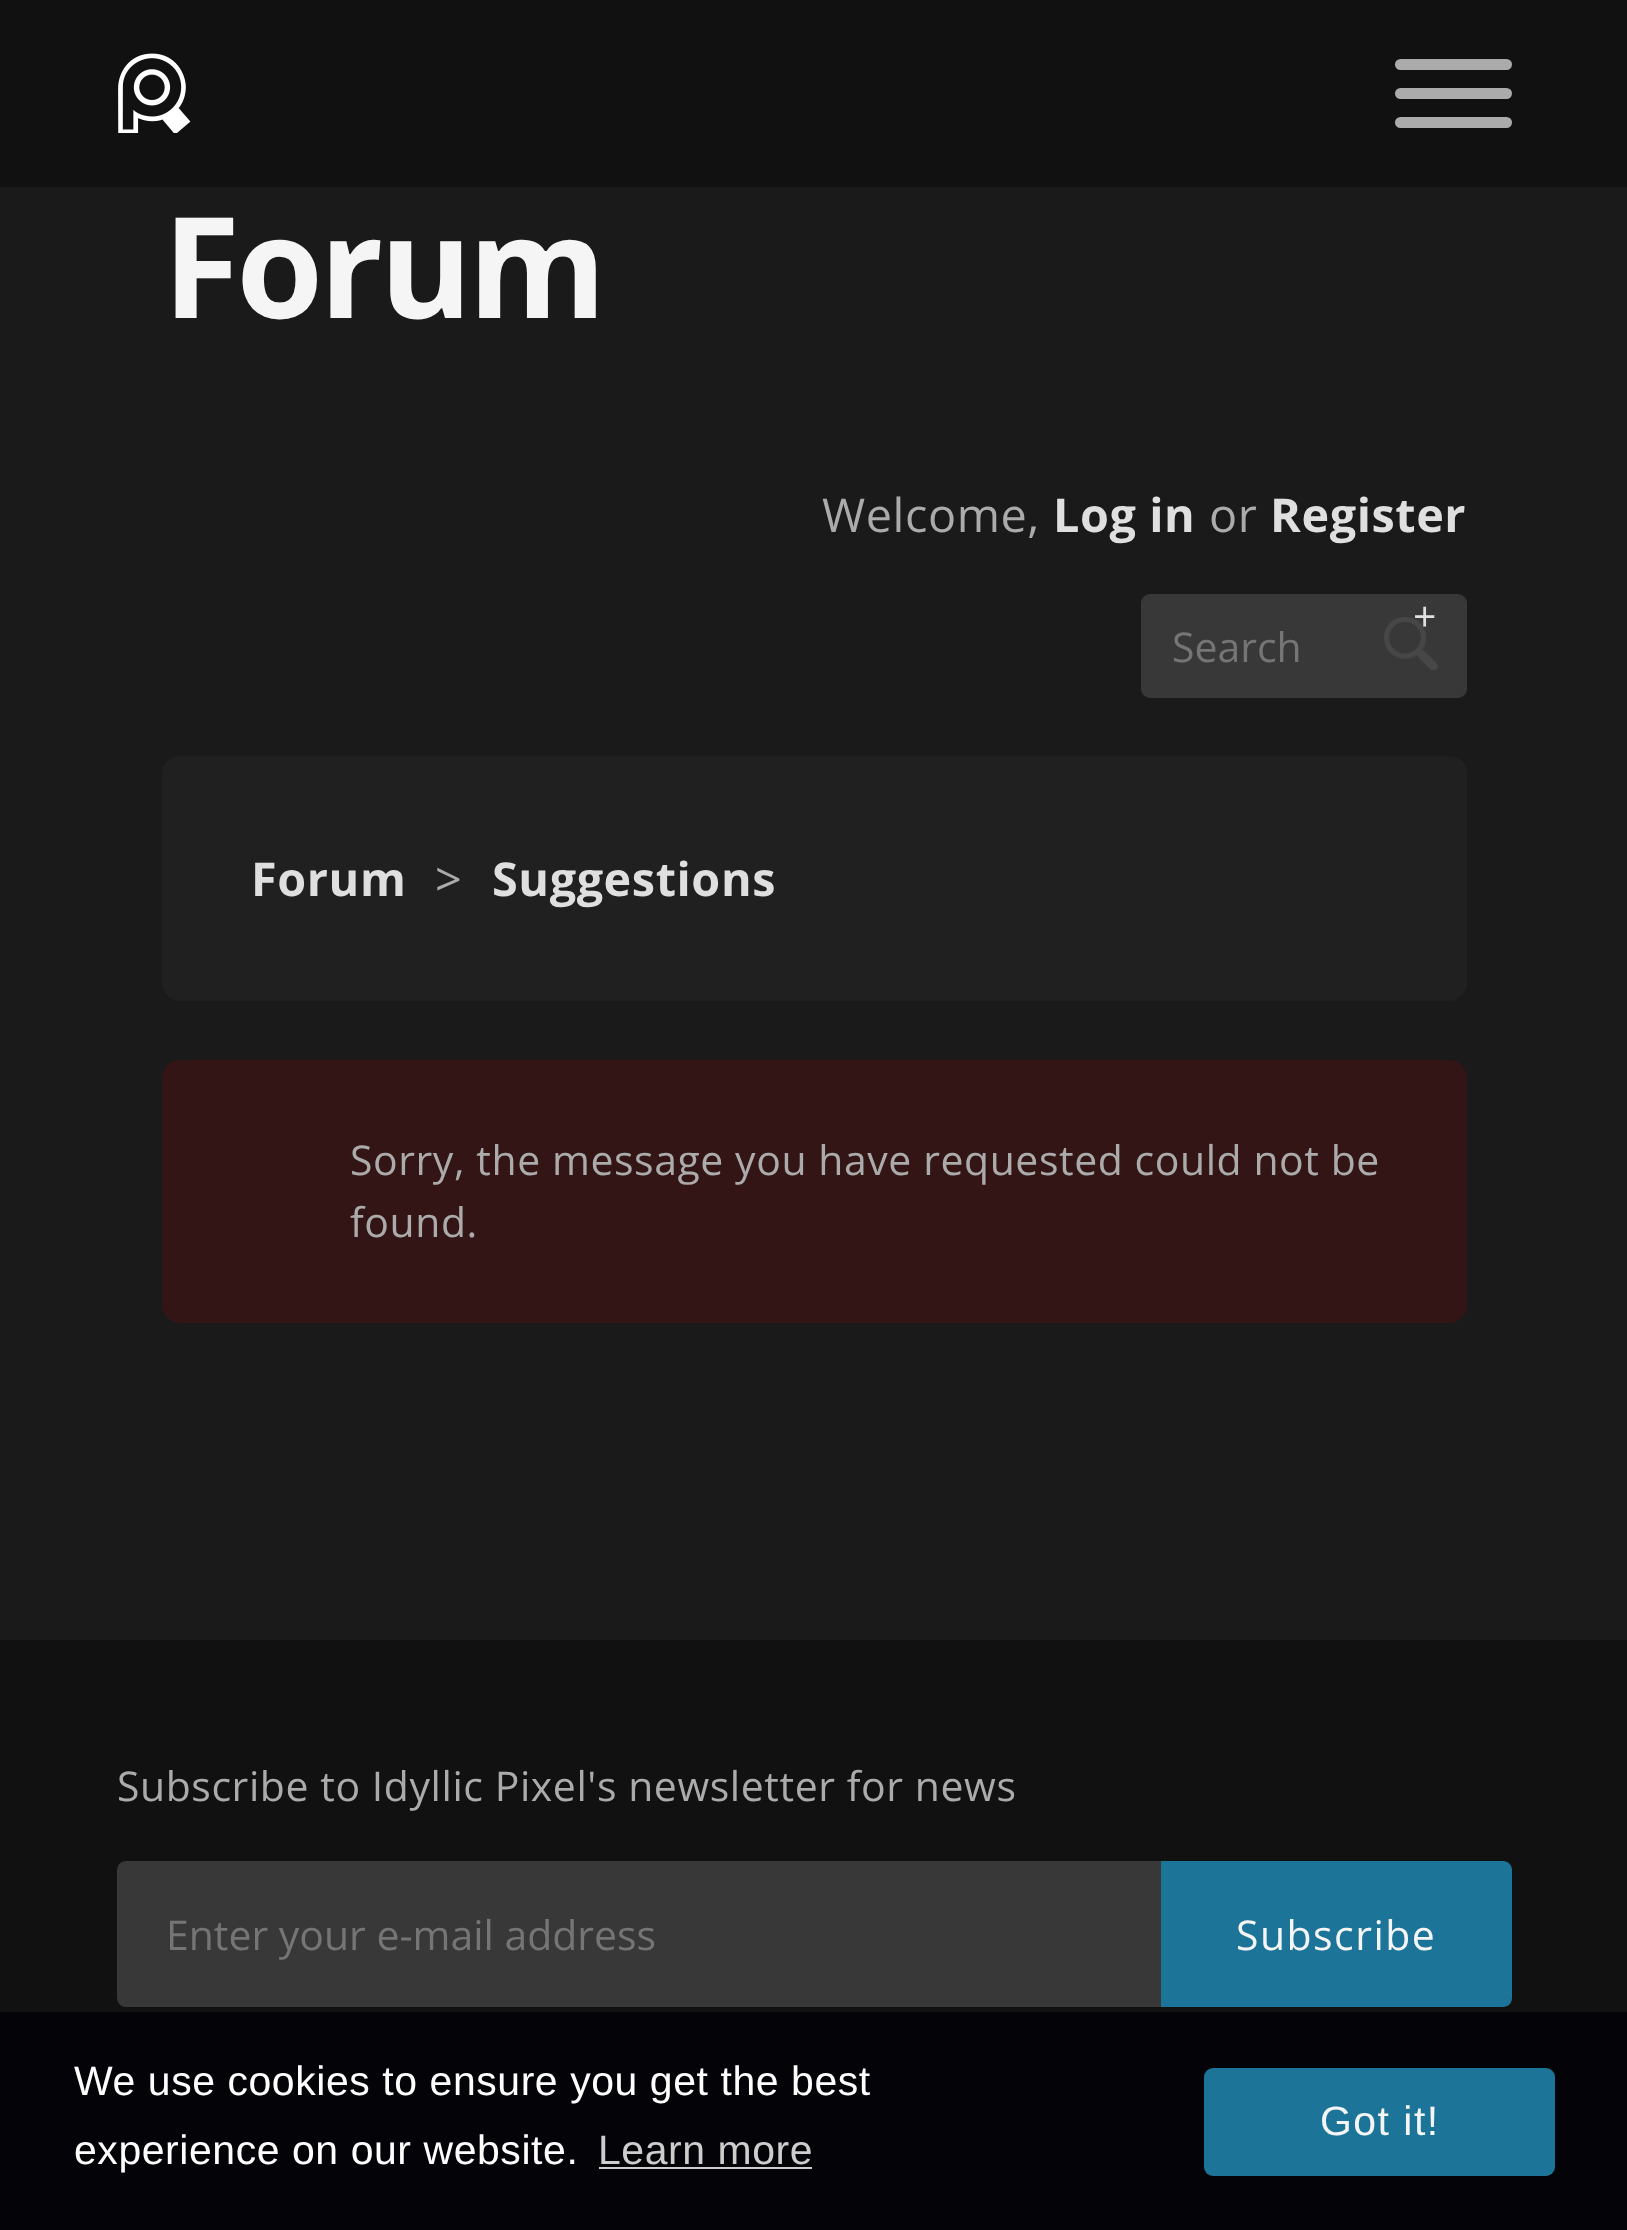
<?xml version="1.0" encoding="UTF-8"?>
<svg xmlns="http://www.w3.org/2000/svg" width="1627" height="2230">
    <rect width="100%" height="100%" fill="#1A1A1A"/>
    <rect x="0" y="0" width="1627" height="187" fill="#111111"/>
    <image x="118" y="53" width="73" height="80" href="img_01.png"/>
    <rect x="1395" y="59" width="117" height="11" rx="5.5" fill="#ABABAB"/>
    <rect x="1395" y="88" width="117" height="11" rx="5.5" fill="#ABABAB"/>
    <rect x="1395" y="117" width="117" height="11" rx="5.5" fill="#ABABAB"/>
    <text x="163" y="318" font-family="Open Sans" font-size="140.5" font-weight="700" letter-spacing="-3.75" fill="#F5F5F5">Forum</text>
    <text x="822" y="532" font-family="Open Sans" font-size="46.75" letter-spacing="0.58" fill="#ABABAB">Welcome,</text>
    <text x="1053" y="532" font-family="Open Sans" font-size="46.75" font-weight="700" letter-spacing="0.58" fill="#DFDFDF">Log in</text>
    <text x="1209" y="532" font-family="Open Sans" font-size="46.75" letter-spacing="0.58" fill="#ABABAB">or</text>
    <text x="1270" y="532" font-family="Open Sans" font-size="46.75" font-weight="700" letter-spacing="0.58" fill="#DFDFDF">Register</text>
    <rect x="1142" y="595" width="324" height="102" rx="8" fill="#383838" stroke="#383838" stroke-width="2"/>
    <image x="1384" y="617" width="54" height="53" href="img_02.png"/>
    <text x="1413" y="631" font-family="Open Sans" font-size="40.95" letter-spacing="0.58" fill="#DFDFDF">+</text>
    <text x="1172" y="662" font-family="Open Sans" font-size="40.95" fill="#757575">Search</text>
    <rect x="162" y="756" width="1305" height="245" rx="18" fill="#202020"/>
    <text x="251" y="896" font-family="Open Sans" font-size="46.75" font-weight="700" letter-spacing="0.58" fill="#DFDFDF">Forum</text>
    <text x="435" y="896" font-family="Open Sans" font-size="46.75" letter-spacing="0.58" fill="#ABABAB">&gt;</text>
    <text x="492" y="896" font-family="Open Sans" font-size="46.75" font-weight="700" letter-spacing="0.58" fill="#DFDFDF">Suggestions</text>
    <rect x="162" y="1060" width="1305" height="263" rx="18" fill="#331515"/>
    <text font-family="Open Sans" font-size="40.95" letter-spacing="0.58" fill="#ABABAB">
        <tspan x="350" y="1175">Sorry, the message you have requested could not be</tspan>
        <tspan x="350" y="1237">found.</tspan>
    </text>
    <rect x="0" y="1640" width="1627" height="372" fill="#111111"/>
    <text x="117" y="1801" font-family="Open Sans" font-size="40.95" letter-spacing="0.58" fill="#ABABAB">Subscribe to Idyllic Pixel's newsletter for news</text>
    <path d="M 126 1862 H 1160 V 2006 H 126 C 121.5 2006 118 2002.5 118 1998 V 1870 C 118 1865.5 121.5 1862 126 1862 Z" fill="#383838" stroke="#383838" stroke-width="2"/>
    <text x="166" y="1950" font-family="Open Sans" font-size="40.95" fill="#757575">Enter your e-mail address</text>
    <path d="M 1161 1861 H 1503 C 1508 1861 1512 1865 1512 1870 V 1998 C 1512 2003 1508 2007 1503 2007 H 1161 Z" fill="#1C7598"/>
    <text x="1236" y="1950" font-family="Open Sans" font-size="40.95" letter-spacing="1.5" fill="#F5F5F5">Subscribe</text>
    <rect x="0" y="2012" width="1627" height="218" fill="#030308"/>
    <text font-family="Liberation Sans" font-size="40.95" letter-spacing="0.58" fill="#FFFFFF">
        <tspan x="74" y="2095">We use cookies to ensure you get the best</tspan>
        <tspan x="74" y="2164">experience on our website.</tspan>
    </text>
    <text x="598" y="2164" font-family="Liberation Sans" font-size="40.95" letter-spacing="0.58" fill="#CDCDCE">Learn more</text>
    <rect x="599" y="2167" width="213" height="2" fill="#CDCDCE"/>
    <rect x="1204" y="2068" width="351" height="108" rx="9" fill="#1C7598"/>
    <text x="1320" y="2135" font-family="Liberation Sans" font-size="40.95" letter-spacing="1.5" fill="#F5F5F5">Got it!</text>
</svg>
